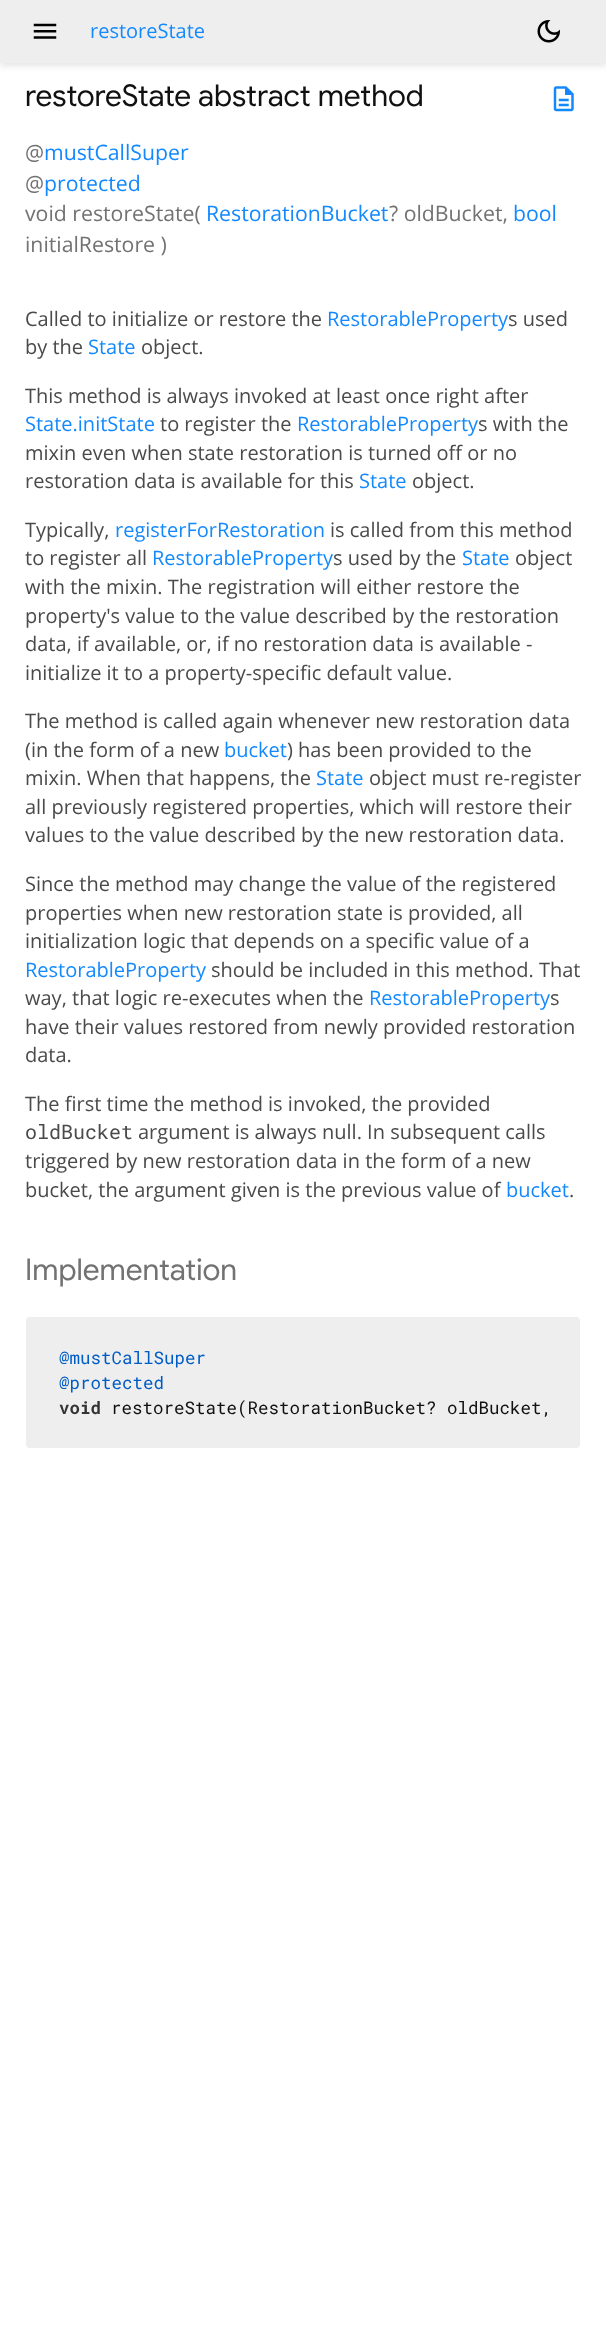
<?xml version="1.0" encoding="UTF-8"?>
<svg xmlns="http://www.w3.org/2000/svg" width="606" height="2352">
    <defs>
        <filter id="blur1" x="-50%" y="-200%" width="200%" height="500%"><feGaussianBlur stdDeviation="3"/></filter>
    </defs>
    <rect width="100%" height="100%" fill="#FFFFFF"/>
    <rect x="0" y="4" width="606" height="62" fill="#000000" fill-opacity="0.1" filter="url(#blur1)"/>
    <rect x="0" y="0" width="606" height="63" fill="#EEEEEE"/>
    <image x="33" y="23" width="24" height="16" href="img_01.png"/>
    <text x="90" y="38" font-family="Open Sans" font-size="20" fill="#1389FD">restoreState</text>
    <image x="537" y="20" width="23" height="23" href="img_02.png"/>
    <text x="25" y="106" font-family="Google Sans" font-size="30" fill="#111111">restoreState abstract method</text>
    <image x="553" y="86" width="21" height="26" href="img_03.png"/>
    <text x="25" y="160" font-family="Open Sans" font-size="21.25" fill="#727272">@</text>
    <text x="44" y="160" font-family="Open Sans" font-size="21.25" fill="#1389FD">mustCallSuper</text>
    <text x="25" y="191" font-family="Open Sans" font-size="21.25" fill="#727272">@</text>
    <text x="44" y="191" font-family="Open Sans" font-size="21.25" fill="#1389FD">protected</text>
    <text x="25" y="221" font-family="Open Sans" font-size="21.25" fill="#727272">void restoreState(</text>
    <text x="206" y="221" font-family="Open Sans" font-size="21.25" fill="#1389FD">RestorationBucket</text>
    <text x="389" y="221" font-family="Open Sans" font-size="21.25" fill="#727272">? oldBucket,</text>
    <text x="513" y="221" font-family="Open Sans" font-size="21.25" fill="#1389FD">bool</text>
    <text x="25" y="252" font-family="Open Sans" font-size="21.25" fill="#727272">initialRestore )</text>
    <text x="25" y="326" font-family="Open Sans" font-size="20" fill="#4A4A4A">Called to initialize or restore the</text>
    <text x="327" y="326" font-family="Open Sans" font-size="20" fill="#1389FD">RestorableProperty</text>
    <text x="508" y="326" font-family="Open Sans" font-size="20" fill="#4A4A4A">s used</text>
    <text x="25" y="354" font-family="Open Sans" font-size="20" fill="#4A4A4A">by the</text>
    <text x="88" y="354" font-family="Open Sans" font-size="20" fill="#1389FD">State</text>
    <text x="141" y="354" font-family="Open Sans" font-size="20" fill="#4A4A4A">object.</text>
    <text x="25" y="403" font-family="Open Sans" font-size="20" fill="#4A4A4A">This method is always invoked at least once right after</text>
    <text x="25" y="431" font-family="Open Sans" font-size="20" fill="#1389FD">State.initState</text>
    <text x="160" y="431" font-family="Open Sans" font-size="20" fill="#4A4A4A">to register the</text>
    <text x="297" y="431" font-family="Open Sans" font-size="20" fill="#1389FD">RestorableProperty</text>
    <text x="478" y="431" font-family="Open Sans" font-size="20" fill="#4A4A4A">s with the</text>
    <text font-family="Open Sans" font-size="20" fill="#4A4A4A">
        <tspan x="25" y="460">mixin even when state restoration is turned off or no</tspan>
        <tspan x="25" y="488">restoration data is available for this</tspan>
    </text>
    <text x="359" y="488" font-family="Open Sans" font-size="20" fill="#1389FD">State</text>
    <text x="412" y="488" font-family="Open Sans" font-size="20" fill="#4A4A4A">object.</text>
    <text x="25" y="537" font-family="Open Sans" font-size="20" fill="#4A4A4A">Typically,</text>
    <text x="115" y="537" font-family="Open Sans" font-size="20" fill="#1389FD">registerForRestoration</text>
    <text x="330" y="537" font-family="Open Sans" font-size="20" fill="#4A4A4A">is called from this method</text>
    <text x="25" y="565" font-family="Open Sans" font-size="20" fill="#4A4A4A">to register all</text>
    <text x="152" y="565" font-family="Open Sans" font-size="20" fill="#1389FD">RestorableProperty</text>
    <text x="333" y="565" font-family="Open Sans" font-size="20" fill="#4A4A4A">s used by the</text>
    <text x="462" y="565" font-family="Open Sans" font-size="20" fill="#1389FD">State</text>
    <text x="515" y="565" font-family="Open Sans" font-size="20" fill="#4A4A4A">object</text>
    <text font-family="Open Sans" font-size="20" fill="#4A4A4A">
        <tspan x="25" y="594">with the mixin. The registration will either restore the</tspan>
        <tspan x="25" y="623">property's value to the value described by the restoration</tspan>
        <tspan x="25" y="651">data, if available, or, if no restoration data is available -</tspan>
        <tspan x="25" y="680">initialize it to a property-specific default value.</tspan>
    </text>
    <text font-family="Open Sans" font-size="20" fill="#4A4A4A">
        <tspan x="25" y="728">The method is called again whenever new restoration data</tspan>
        <tspan x="25" y="757">(in the form of a new</tspan>
    </text>
    <text x="224" y="757" font-family="Open Sans" font-size="20" fill="#1389FD">bucket</text>
    <text x="287" y="757" font-family="Open Sans" font-size="20" fill="#4A4A4A">) has been provided to the</text>
    <text x="25" y="785" font-family="Open Sans" font-size="20" fill="#4A4A4A">mixin. When that happens, the</text>
    <text x="316" y="785" font-family="Open Sans" font-size="20" fill="#1389FD">State</text>
    <text x="369" y="785" font-family="Open Sans" font-size="20" fill="#4A4A4A">object must re-register</text>
    <text font-family="Open Sans" font-size="20" fill="#4A4A4A">
        <tspan x="25" y="814">all previously registered properties, which will restore their</tspan>
        <tspan x="25" y="842">values to the value described by the new restoration data.</tspan>
    </text>
    <text font-family="Open Sans" font-size="20" fill="#4A4A4A">
        <tspan x="25" y="891">Since the method may change the value of the registered</tspan>
        <tspan x="25" y="920">properties when new restoration state is provided, all</tspan>
        <tspan x="25" y="948">initialization logic that depends on a specific value of a</tspan>
    </text>
    <text x="25" y="977" font-family="Open Sans" font-size="20" fill="#1389FD">RestorableProperty</text>
    <text x="211" y="977" font-family="Open Sans" font-size="20" fill="#4A4A4A">should be included in this method. That</text>
    <text x="25" y="1005" font-family="Open Sans" font-size="20" fill="#4A4A4A">way, that logic re-executes when the</text>
    <text x="369" y="1005" font-family="Open Sans" font-size="20" fill="#1389FD">RestorableProperty</text>
    <text x="550" y="1005" font-family="Open Sans" font-size="20" fill="#4A4A4A">s</text>
    <text font-family="Open Sans" font-size="20" fill="#4A4A4A">
        <tspan x="25" y="1034">have their values restored from newly provided restoration</tspan>
        <tspan x="25" y="1062">data.</tspan>
    </text>
    <text x="25" y="1111" font-family="Open Sans" font-size="20" fill="#4A4A4A">The first time the method is invoked, the provided</text>
    <text x="25" y="1139" font-family="Roboto Mono" font-size="20" fill="#4A4A4A">oldBucket</text>
    <text x="138" y="1139" font-family="Open Sans" font-size="20" fill="#4A4A4A">argument is always null. In subsequent calls</text>
    <text font-family="Open Sans" font-size="20" fill="#4A4A4A">
        <tspan x="25" y="1168">triggered by new restoration data in the form of a new</tspan>
        <tspan x="25" y="1197">bucket, the argument given is the previous value of</tspan>
    </text>
    <text x="506" y="1197" font-family="Open Sans" font-size="20" fill="#1389FD">bucket</text>
    <text x="569" y="1197" font-family="Open Sans" font-size="20" fill="#4A4A4A">.</text>
    <text x="25" y="1280" font-family="Google Sans" font-size="30" fill="#727272">Implementation</text>
    <rect x="25.5" y="1316.5" width="555" height="132" rx="4.5" fill="#EEEEEE" stroke="#FFFFFF"/>
    <text font-family="Roboto Mono" font-size="17.5" fill="#005CC5">
        <tspan x="59" y="1364">@mustCallSuper</tspan>
        <tspan x="59" y="1389">@protected</tspan>
    </text>
    <text x="59" y="1414" font-family="Roboto Mono" font-size="17.5" font-weight="700" fill="#333333">void</text>
    <text x="111" y="1414" font-family="Roboto Mono" font-size="17.5" fill="#111111">restoreState(RestorationBucket? oldBucket,</text>
</svg>
